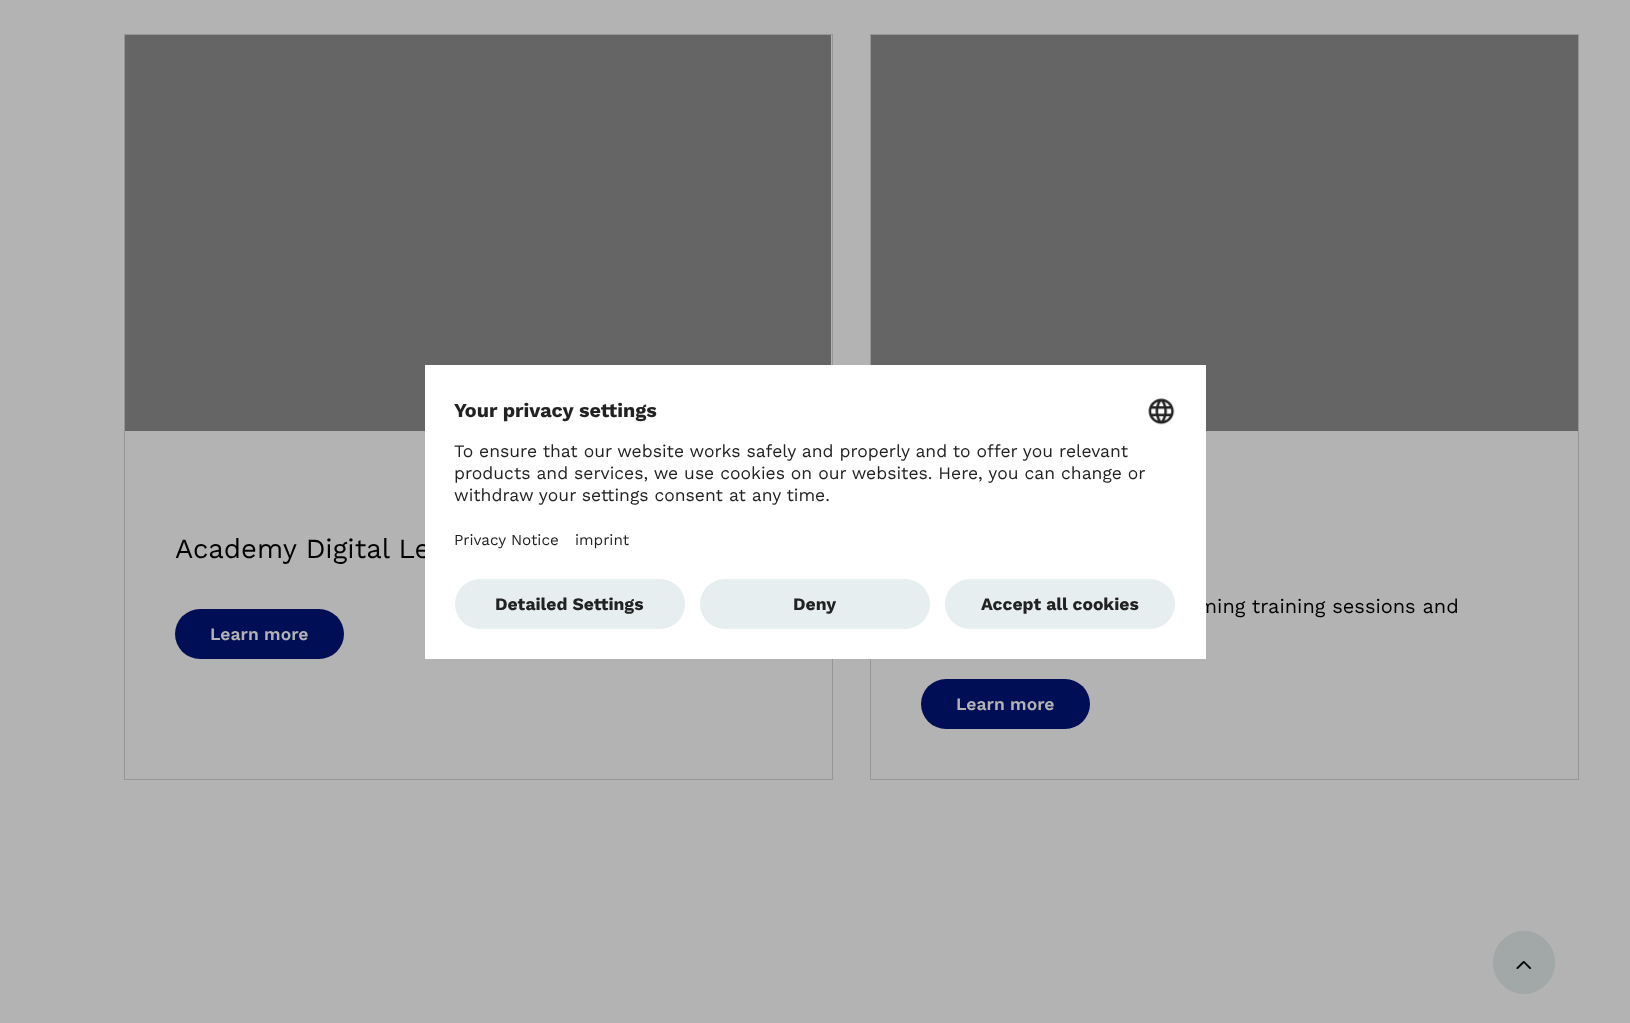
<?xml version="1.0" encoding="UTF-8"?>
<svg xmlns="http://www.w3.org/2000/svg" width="1630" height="1023">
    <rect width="100%" height="100%" fill="#B3B3B3"/>
    <rect x="124.5" y="34.5" width="708" height="745" fill="none" stroke="#969696"/>
    <rect x="125" y="35" width="706" height="396" fill="#656565"/>
    <text x="175" y="558" font-family="Work Sans" font-size="27.5" fill="#000000">Academy Digital Le</text>
    <rect x="870.5" y="34.5" width="708" height="745" fill="none" stroke="#969696"/>
    <rect x="871" y="35" width="707" height="396" fill="#656565"/>
    <text x="1198" y="613" font-family="Work Sans" font-size="20" fill="#000000">ming training sessions and</text>
    <rect x="425" y="365" width="781" height="294" fill="#FFFFFF"/>
    <text x="454" y="417" font-family="Work Sans" font-size="19.75" font-weight="700" fill="#222222">Your privacy settings</text>
    <image x="1148" y="398" width="27" height="27" href="img_01.png"/>
    <text font-family="Work Sans" font-size="17.5" fill="#222222">
        <tspan x="454" y="457">To ensure that our website works safely and properly and to offer you relevant</tspan>
        <tspan x="454" y="479">products and services, we use cookies on our websites. Here, you can change or</tspan>
        <tspan x="454" y="501">withdraw your settings consent at any time.</tspan>
    </text>
    <text x="454" y="545" font-family="Work Sans" font-size="15.25" fill="#222222">Privacy Notice</text>
    <text x="575" y="545" font-family="Work Sans" font-size="15.25" fill="#222222">imprint</text>
    <rect x="455" y="579" width="230" height="50" rx="25" fill="#E7EEEF"/>
    <text x="495" y="610" font-family="Work Sans" font-size="17.5" font-weight="700" fill="#222222">Detailed Settings</text>
    <rect x="700" y="579" width="230" height="50" rx="25" fill="#E7EEEF"/>
    <text x="793" y="610" font-family="Work Sans" font-size="17.5" font-weight="700" fill="#222222">Deny</text>
    <rect x="945" y="579" width="230" height="50" rx="25" fill="#E7EEEF"/>
    <text x="981" y="610" font-family="Work Sans" font-size="17.5" font-weight="700" fill="#222222">Accept all cookies</text>
    <rect x="175" y="609" width="169" height="50" rx="25" fill="#000F55"/>
    <text x="210" y="640" font-family="Work Sans" font-size="17.5" font-weight="600" fill="#B3B3B3">Learn more</text>
    <rect x="921" y="679" width="169" height="50" rx="25" fill="#000F55"/>
    <text x="956" y="710" font-family="Work Sans" font-size="17.5" font-weight="600" fill="#B3B3B3">Learn more</text>
    <rect x="1493.5" y="931.5" width="61" height="62" rx="30.5" fill="#A2A7A7" stroke="#A2A7A7"/>
    <image x="1516" y="961" width="16" height="8" href="img_02.png"/>
</svg>
